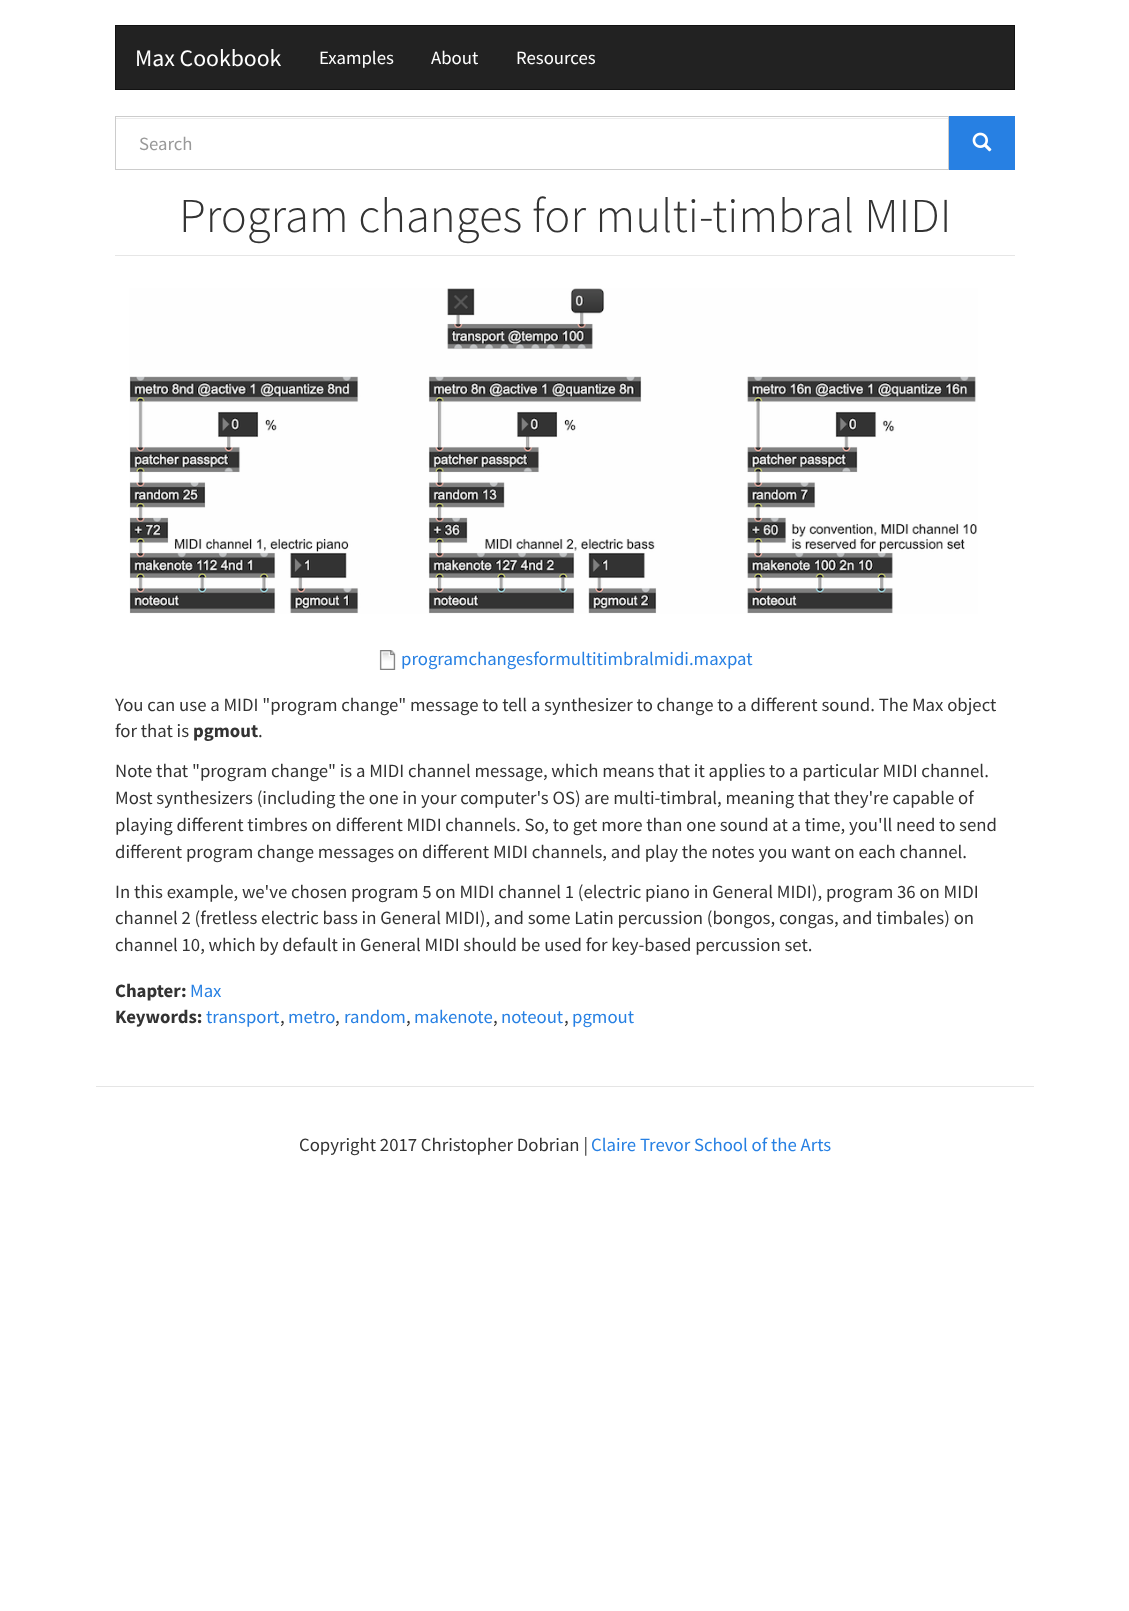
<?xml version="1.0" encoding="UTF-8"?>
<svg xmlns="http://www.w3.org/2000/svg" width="1129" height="1611">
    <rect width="100%" height="100%" fill="#FFFFFF"/>
    <rect x="115.5" y="25.5" width="899" height="64" fill="#222222" stroke="#121212"/>
    <text x="135" y="66" font-family="Source Sans Pro" font-size="23.75" fill="#FFFFFF">Max Cookbook</text>
    <text x="319" y="64" font-family="Source Sans Pro" font-size="18.75" fill="#FFFFFF">Examples</text>
    <text x="431" y="64" font-family="Source Sans Pro" font-size="18.75" fill="#FFFFFF">About</text>
    <text x="516" y="64" font-family="Source Sans Pro" font-size="18.75" fill="#FFFFFF">Resources</text>
    <rect x="116" y="118" width="832" height="1" fill="#ECECEC"/>
    <rect x="115.5" y="116.5" width="833" height="53" fill="none" stroke="#CCCCCC"/>
    <text x="139" y="150" font-family="Source Sans Pro" font-size="18.75" fill="#999999">Search</text>
    <rect x="949" y="116" width="66" height="54" fill="#2780E3"/>
    <image x="972" y="132" width="20" height="20" href="img_01.png"/>
    <rect x="115" y="255" width="900" height="1" fill="#E6E6E6"/>
    <text x="179" y="232" font-family="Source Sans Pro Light" font-size="48.75" font-weight="300" fill="#333333">Program changes for multi-timbral MIDI</text>
    <image x="129" y="288" width="849" height="326" href="img_02.png"/>
    <image x="379" y="650" width="17" height="20" href="img_03.png"/>
    <text x="401" y="665" font-family="Source Sans Pro" font-size="18.75" fill="#2780E3">programchangesformultitimbralmidi.maxpat</text>
    <text font-family="Source Sans Pro" font-size="18.75" fill="#333333">
        <tspan x="115" y="711">You can use a MIDI "program change" message to tell a synthesizer to change to a different sound. The Max object</tspan>
        <tspan x="115" y="737">for that is</tspan>
    </text>
    <text x="193" y="737" font-family="Source Sans Pro" font-size="18.75" font-weight="700" fill="#333333">pgmout</text>
    <text x="258" y="737" font-family="Source Sans Pro" font-size="18.75" fill="#333333">.</text>
    <text font-family="Source Sans Pro" font-size="18.75" fill="#333333">
        <tspan x="115" y="777">Note that "program change" is a MIDI channel message, which means that it applies to a particular MIDI channel.</tspan>
        <tspan x="115" y="804">Most synthesizers (including the one in your computer's OS) are multi-timbral, meaning that they're capable of</tspan>
        <tspan x="115" y="831">playing different timbres on different MIDI channels. So, to get more than one sound at a time, you'll need to send</tspan>
        <tspan x="115" y="858">different program change messages on different MIDI channels, and play the notes you want on each channel.</tspan>
    </text>
    <text font-family="Source Sans Pro" font-size="18.75" fill="#333333">
        <tspan x="115" y="898">In this example, we've chosen program 5 on MIDI channel 1 (electric piano in General MIDI), program 36 on MIDI</tspan>
        <tspan x="115" y="924">channel 2 (fretless electric bass in General MIDI), and some Latin percussion (bongos, congas, and timbales) on</tspan>
        <tspan x="115" y="951">channel 10, which by default in General MIDI should be used for key-based percussion set.</tspan>
    </text>
    <text x="115" y="997" font-family="Source Sans Pro" font-size="18.75" font-weight="700" fill="#333333">Chapter:</text>
    <text x="190" y="997" font-family="Source Sans Pro" font-size="18.75" fill="#2780E3">Max</text>
    <text x="115" y="1023" font-family="Source Sans Pro" font-size="18.75" font-weight="700" fill="#333333">Keywords:</text>
    <text x="206" y="1023" font-family="Source Sans Pro" font-size="18.75" fill="#2780E3">transport</text>
    <text x="280" y="1023" font-family="Source Sans Pro" font-size="18.75" fill="#333333">,</text>
    <text x="288" y="1023" font-family="Source Sans Pro" font-size="18.75" fill="#2780E3">metro</text>
    <text x="335" y="1023" font-family="Source Sans Pro" font-size="18.75" fill="#333333">,</text>
    <text x="344" y="1023" font-family="Source Sans Pro" font-size="18.75" fill="#2780E3">random</text>
    <text x="406" y="1023" font-family="Source Sans Pro" font-size="18.75" fill="#333333">,</text>
    <text x="414" y="1023" font-family="Source Sans Pro" font-size="18.75" fill="#2780E3">makenote</text>
    <text x="493" y="1023" font-family="Source Sans Pro" font-size="18.75" fill="#333333">,</text>
    <text x="501" y="1023" font-family="Source Sans Pro" font-size="18.75" fill="#2780E3">noteout</text>
    <text x="564" y="1023" font-family="Source Sans Pro" font-size="18.75" fill="#333333">,</text>
    <text x="572" y="1023" font-family="Source Sans Pro" font-size="18.75" fill="#2780E3">pgmout</text>
    <rect x="96" y="1086" width="938" height="1" fill="#E5E5E5"/>
    <text x="299" y="1151" font-family="Source Sans Pro" font-size="18.75" fill="#333333">Copyright 2017 Christopher Dobrian |</text>
    <text x="591" y="1151" font-family="Source Sans Pro" font-size="18.75" fill="#2780E3">Claire Trevor School of the Arts</text>
</svg>
